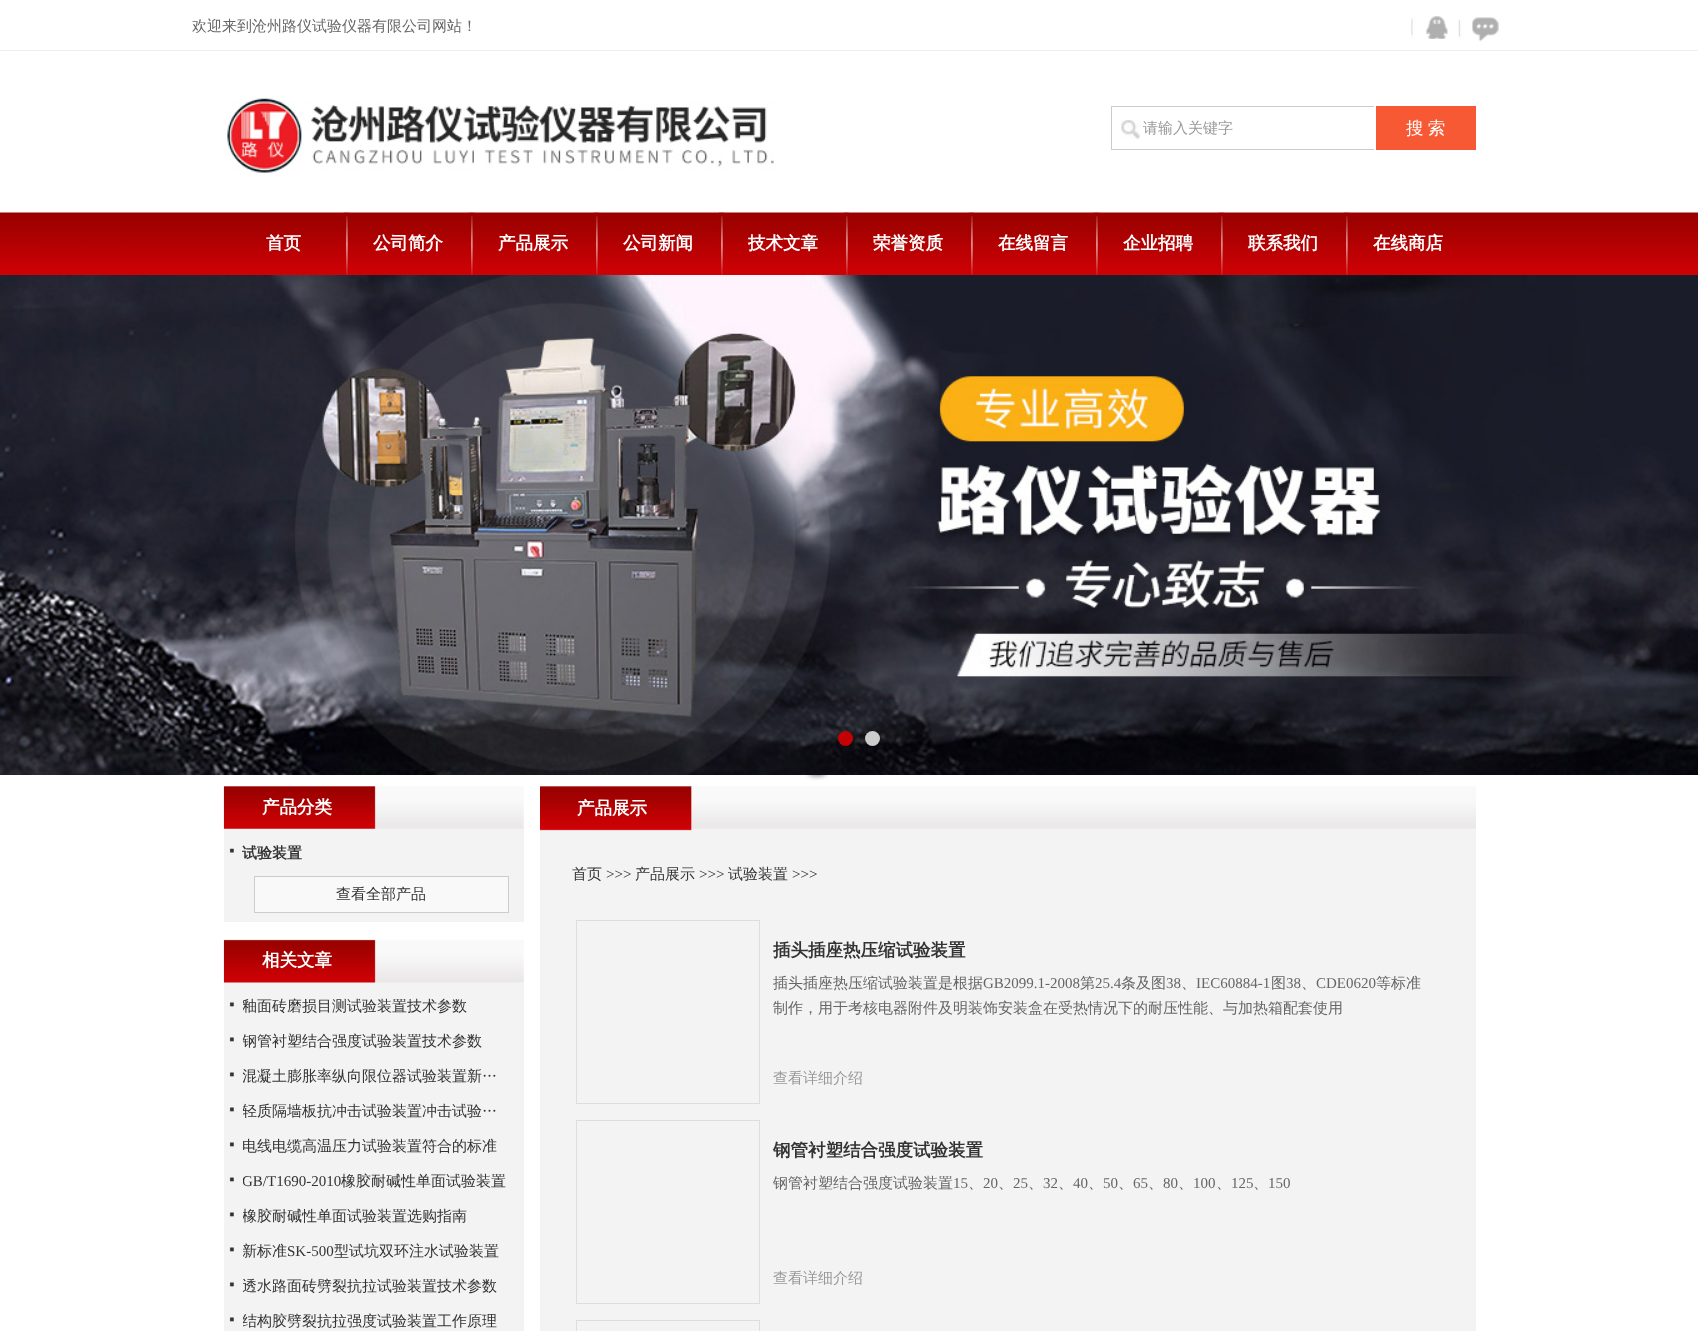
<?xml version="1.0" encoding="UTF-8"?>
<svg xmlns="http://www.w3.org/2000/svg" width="1698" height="1331">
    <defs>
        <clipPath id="clip1"><rect x="243" y="996" width="268" height="22"/></clipPath>
        <clipPath id="clip2"><rect x="243" y="1031" width="268" height="22"/></clipPath>
        <clipPath id="clip3"><rect x="243" y="1066" width="268" height="22"/></clipPath>
        <clipPath id="clip4"><rect x="243" y="1101" width="268" height="22"/></clipPath>
        <clipPath id="clip5"><rect x="243" y="1171" width="268" height="22"/></clipPath>
        <clipPath id="clip6"><rect x="243" y="1206" width="268" height="22"/></clipPath>
        <clipPath id="clip7"><rect x="243" y="1241" width="268" height="22"/></clipPath>
        <clipPath id="clip8"><rect x="243" y="1276" width="268" height="22"/></clipPath>
        <clipPath id="clip9"><rect x="243" y="1311" width="268" height="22"/></clipPath>
    </defs>
    <rect width="100%" height="100%" fill="#FFFFFF"/>
    <rect x="0" y="50" width="1698" height="1" fill="#EEEEEE"/>
    <text x="192" y="31" font-family="WenQuanYi Zen Hei" font-size="15" font-weight="500" fill="#666666">欢迎来到沧州路仪试验仪器有限公司网站！</text>
    <image x="1411" y="16" width="37" height="23" href="img_01.png"/>
    <image x="1458" y="17" width="41" height="25" href="img_02.png"/>
    <image x="227" y="98" width="547" height="75" href="img_03.png"/>
    <image x="1121" y="120" width="19" height="19" href="img_04.png"/>
    <rect x="1111" y="106" width="263" height="1" fill="#CCCCCC"/>
    <rect x="1111" y="149" width="263" height="1" fill="#CCCCCC"/>
    <rect x="1111" y="106" width="1" height="44" fill="#CCCCCC"/>
    <text x="1143" y="133" font-family="WenQuanYi Zen Hei" font-size="15" font-weight="500" fill="#999999">请输入关键字</text>
    <rect x="1376" y="106" width="100" height="44" fill="#F65934"/>
    <text x="1406" y="134" word-spacing="-1" font-family="WenQuanYi Zen Hei" font-size="17.5" font-weight="500" fill="#FFFFFF">搜 索</text>
    <image x="0" y="212" width="1698" height="63" href="img_05.png"/>
    <text x="266" y="249" font-family="WenQuanYi Zen Hei" font-size="17.5" font-weight="700" fill="#FFFFFF">首页</text>
    <image x="343" y="212" width="6" height="63" href="img_06.png"/>
    <text x="373" y="249" font-family="WenQuanYi Zen Hei" font-size="17.5" font-weight="700" fill="#FFFFFF">公司简介</text>
    <image x="468" y="212" width="6" height="63" href="img_07.png"/>
    <text x="498" y="249" font-family="WenQuanYi Zen Hei" font-size="17.5" font-weight="700" fill="#FFFFFF">产品展示</text>
    <image x="593" y="212" width="6" height="63" href="img_07.png"/>
    <text x="623" y="249" font-family="WenQuanYi Zen Hei" font-size="17.5" font-weight="700" fill="#FFFFFF">公司新闻</text>
    <image x="718" y="212" width="6" height="63" href="img_06.png"/>
    <text x="748" y="249" font-family="WenQuanYi Zen Hei" font-size="17.5" font-weight="700" fill="#FFFFFF">技术文章</text>
    <image x="843" y="212" width="6" height="63" href="img_08.png"/>
    <text x="873" y="249" font-family="WenQuanYi Zen Hei" font-size="17.5" font-weight="700" fill="#FFFFFF">荣誉资质</text>
    <image x="968" y="212" width="6" height="63" href="img_08.png"/>
    <text x="998" y="249" font-family="WenQuanYi Zen Hei" font-size="17.5" font-weight="700" fill="#FFFFFF">在线留言</text>
    <image x="1093" y="212" width="6" height="63" href="img_06.png"/>
    <text x="1123" y="249" font-family="WenQuanYi Zen Hei" font-size="17.5" font-weight="700" fill="#FFFFFF">企业招聘</text>
    <image x="1218" y="212" width="6" height="63" href="img_07.png"/>
    <text x="1248" y="249" font-family="WenQuanYi Zen Hei" font-size="17.5" font-weight="700" fill="#FFFFFF">联系我们</text>
    <image x="1343" y="212" width="6" height="63" href="img_09.png"/>
    <text x="1373" y="249" font-family="WenQuanYi Zen Hei" font-size="17.5" font-weight="700" fill="#FFFFFF">在线商店</text>
    <image x="0" y="275" width="1698" height="500" href="img_10.png"/>
    <circle cx="845.5" cy="738.5" r="7.5" fill="#C40105"/>
    <circle cx="872.5" cy="738.5" r="7.5" fill="#CCCCCC"/>
    <rect x="224" y="829" width="300" height="502" fill="#F3F3F3"/>
    <image x="223" y="775" width="301" height="54" href="img_11.png"/>
    <text x="262" y="813" font-family="WenQuanYi Zen Hei" font-size="17.5" font-weight="700" fill="#FFFFFF">产品分类</text>
    <image x="229" y="848" width="5" height="5" href="img_12.png"/>
    <text x="242" y="858" font-family="WenQuanYi Zen Hei" font-size="15" font-weight="700" fill="#333333">试验装置</text>
    <rect x="254.5" y="876.5" width="254" height="36" fill="#F9F9F9" stroke="#CCCCCC"/>
    <text x="336" y="899" font-family="WenQuanYi Zen Hei" font-size="15" font-weight="500" fill="#333333">查看全部产品</text>
    <rect x="224" y="922" width="300" height="7" fill="#FFFFFF"/>
    <image x="223" y="929" width="301" height="54" href="img_13.png"/>
    <text x="262" y="966" font-family="WenQuanYi Zen Hei" font-size="17.5" font-weight="700" fill="#FFFFFF">相关文章</text>
    <image x="229" y="1002" width="5" height="5" href="img_14.png"/>
    <g clip-path="url(#clip1)">
        <text x="242" y="1011" font-family="WenQuanYi Zen Hei" font-size="15" font-weight="500" fill="#333333">釉面砖磨损目测试验装置技术参数</text>
    </g>
    <image x="229" y="1037" width="5" height="5" href="img_14.png"/>
    <g clip-path="url(#clip2)">
        <text x="242" y="1046" font-family="WenQuanYi Zen Hei" font-size="15" font-weight="500" fill="#333333">钢管衬塑结合强度试验装置技术参数</text>
    </g>
    <image x="229" y="1072" width="5" height="5" href="img_14.png"/>
    <g clip-path="url(#clip3)">
        <text x="242" y="1081" font-family="WenQuanYi Zen Hei" font-size="15" font-weight="500" fill="#333333">混凝土膨胀率纵向限位器试验装置新…</text>
    </g>
    <image x="229" y="1107" width="5" height="5" href="img_14.png"/>
    <g clip-path="url(#clip4)">
        <text x="242" y="1116" font-family="WenQuanYi Zen Hei" font-size="15" font-weight="500" fill="#333333">轻质隔墙板抗冲击试验装置冲击试验…</text>
    </g>
    <image x="229" y="1142" width="5" height="5" href="img_14.png"/>
    <text x="242" y="1151" font-family="WenQuanYi Zen Hei" font-size="15" font-weight="500" fill="#333333">电线电缆高温压力试验装置符合的标准</text>
    <image x="229" y="1177" width="5" height="5" href="img_15.png"/>
    <g clip-path="url(#clip5)">
        <text x="242" y="1186" font-family="Liberation Serif" font-size="15" fill="#333333">GB/T1690-2010</text>
    </g>
    <text x="341" y="1186" font-family="WenQuanYi Zen Hei" font-size="15" font-weight="500" fill="#333333">橡胶耐碱性单面试验装置</text>
    <image x="229" y="1212" width="5" height="5" href="img_14.png"/>
    <g clip-path="url(#clip6)">
        <text x="242" y="1221" font-family="WenQuanYi Zen Hei" font-size="15" font-weight="500" fill="#333333">橡胶耐碱性单面试验装置选购指南</text>
    </g>
    <image x="229" y="1247" width="5" height="5" href="img_14.png"/>
    <g clip-path="url(#clip7)">
        <text x="242" y="1256" font-family="WenQuanYi Zen Hei" font-size="15" font-weight="500" fill="#333333">新标准</text>
    </g>
    <text x="287" y="1256" font-family="Liberation Serif" font-size="15" fill="#333333">SK-500</text>
    <text x="334" y="1256" font-family="WenQuanYi Zen Hei" font-size="15" font-weight="500" fill="#333333">型试坑双环注水试验装置</text>
    <image x="229" y="1282" width="5" height="5" href="img_14.png"/>
    <g clip-path="url(#clip8)">
        <text x="242" y="1291" font-family="WenQuanYi Zen Hei" font-size="15" font-weight="500" fill="#333333">透水路面砖劈裂抗拉试验装置技术参数</text>
    </g>
    <image x="229" y="1317" width="5" height="5" href="img_14.png"/>
    <g clip-path="url(#clip9)">
        <text x="242" y="1326" font-family="WenQuanYi Zen Hei" font-size="15" font-weight="500" fill="#333333">结构胶劈裂抗拉强度试验装置工作原理</text>
    </g>
    <rect x="540" y="831" width="936" height="500" fill="#F3F3F3"/>
    <image x="540" y="775" width="936" height="56" href="img_16.png"/>
    <text x="577" y="814" font-family="WenQuanYi Zen Hei" font-size="17.5" font-weight="700" fill="#FFFFFF">产品展示</text>
    <text x="572" y="879" font-family="WenQuanYi Zen Hei" font-size="15" font-weight="500" fill="#333333">首页</text>
    <text x="606" y="879" font-family="Liberation Serif" font-size="15" fill="#333333">&gt;&gt;&gt;</text>
    <text x="635" y="879" font-family="WenQuanYi Zen Hei" font-size="15" font-weight="500" fill="#333333">产品展示</text>
    <text x="699" y="879" font-family="Liberation Serif" font-size="15" fill="#333333">&gt;&gt;&gt;</text>
    <text x="728" y="879" font-family="WenQuanYi Zen Hei" font-size="15" font-weight="500" fill="#333333">试验装置</text>
    <text x="792" y="879" font-family="Liberation Serif" font-size="15" fill="#333333">&gt;&gt;&gt;</text>
    <rect x="576.5" y="920.5" width="183" height="183" fill="none" stroke="#DDDDDD"/>
    <text x="773" y="956" font-family="WenQuanYi Zen Hei" font-size="17.5" font-weight="700" fill="#333333">插头插座热压缩试验装置</text>
    <text x="773" y="988" font-family="WenQuanYi Zen Hei" font-size="15" font-weight="500" fill="#666666">插头插座热压缩试验装置是根据</text>
    <text x="983" y="988" font-family="Liberation Serif" font-size="15" fill="#666666">GB2099.1-2008</text>
    <text x="1080" y="988" font-family="WenQuanYi Zen Hei" font-size="15" font-weight="500" fill="#666666">第</text>
    <text x="1095" y="988" font-family="Liberation Serif" font-size="15" fill="#666666">25.4</text>
    <text x="1121" y="988" font-family="WenQuanYi Zen Hei" font-size="15" font-weight="500" fill="#666666">条及图</text>
    <text x="1166" y="988" font-family="Liberation Serif" font-size="15" fill="#666666">38</text>
    <text x="1181" y="988" font-family="WenQuanYi Zen Hei" font-size="15" font-weight="500" fill="#666666">、</text>
    <text x="1196" y="988" font-family="Liberation Serif" font-size="15" fill="#666666">IEC60884-1</text>
    <text x="1271" y="988" font-family="WenQuanYi Zen Hei" font-size="15" font-weight="500" fill="#666666">图</text>
    <text x="1286" y="988" font-family="Liberation Serif" font-size="15" fill="#666666">38</text>
    <text x="1301" y="988" font-family="WenQuanYi Zen Hei" font-size="15" font-weight="500" fill="#666666">、</text>
    <text x="1316" y="988" font-family="Liberation Serif" font-size="15" fill="#666666">CDE0620</text>
    <text x="1376" y="988" font-family="WenQuanYi Zen Hei" font-size="15" font-weight="500" fill="#666666">等标准</text>
    <text x="773" y="1013" font-family="WenQuanYi Zen Hei" font-size="15" font-weight="500" fill="#666666">制作，用于考核电器附件及明装饰安装盒在受热情况下的耐压性能、与加热箱配套使用</text>
    <text x="773" y="1083" font-family="WenQuanYi Zen Hei" font-size="15" font-weight="500" fill="#999999">查看详细介绍</text>
    <rect x="576.5" y="1120.5" width="183" height="183" fill="none" stroke="#DDDDDD"/>
    <text x="773" y="1156" font-family="WenQuanYi Zen Hei" font-size="17.5" font-weight="700" fill="#333333">钢管衬塑结合强度试验装置</text>
    <text x="773" y="1188" font-family="WenQuanYi Zen Hei" font-size="15" font-weight="500" fill="#666666">钢管衬塑结合强度试验装置</text>
    <text x="953" y="1188" font-family="Liberation Serif" font-size="15" fill="#666666">15</text>
    <text x="968" y="1188" font-family="WenQuanYi Zen Hei" font-size="15" font-weight="500" fill="#666666">、</text>
    <text x="983" y="1188" font-family="Liberation Serif" font-size="15" fill="#666666">20</text>
    <text x="998" y="1188" font-family="WenQuanYi Zen Hei" font-size="15" font-weight="500" fill="#666666">、</text>
    <text x="1013" y="1188" font-family="Liberation Serif" font-size="15" fill="#666666">25</text>
    <text x="1028" y="1188" font-family="WenQuanYi Zen Hei" font-size="15" font-weight="500" fill="#666666">、</text>
    <text x="1043" y="1188" font-family="Liberation Serif" font-size="15" fill="#666666">32</text>
    <text x="1058" y="1188" font-family="WenQuanYi Zen Hei" font-size="15" font-weight="500" fill="#666666">、</text>
    <text x="1073" y="1188" font-family="Liberation Serif" font-size="15" fill="#666666">40</text>
    <text x="1088" y="1188" font-family="WenQuanYi Zen Hei" font-size="15" font-weight="500" fill="#666666">、</text>
    <text x="1103" y="1188" font-family="Liberation Serif" font-size="15" fill="#666666">50</text>
    <text x="1118" y="1188" font-family="WenQuanYi Zen Hei" font-size="15" font-weight="500" fill="#666666">、</text>
    <text x="1133" y="1188" font-family="Liberation Serif" font-size="15" fill="#666666">65</text>
    <text x="1148" y="1188" font-family="WenQuanYi Zen Hei" font-size="15" font-weight="500" fill="#666666">、</text>
    <text x="1163" y="1188" font-family="Liberation Serif" font-size="15" fill="#666666">80</text>
    <text x="1178" y="1188" font-family="WenQuanYi Zen Hei" font-size="15" font-weight="500" fill="#666666">、</text>
    <text x="1193" y="1188" font-family="Liberation Serif" font-size="15" fill="#666666">100</text>
    <text x="1216" y="1188" font-family="WenQuanYi Zen Hei" font-size="15" font-weight="500" fill="#666666">、</text>
    <text x="1231" y="1188" font-family="Liberation Serif" font-size="15" fill="#666666">125</text>
    <text x="1253" y="1188" font-family="WenQuanYi Zen Hei" font-size="15" font-weight="500" fill="#666666">、</text>
    <text x="1268" y="1188" font-family="Liberation Serif" font-size="15" fill="#666666">150</text>
    <text x="773" y="1283" font-family="WenQuanYi Zen Hei" font-size="15" font-weight="500" fill="#999999">查看详细介绍</text>
    <rect x="576.5" y="1320.5" width="183" height="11" fill="none" stroke="#DDDDDD"/>
</svg>
